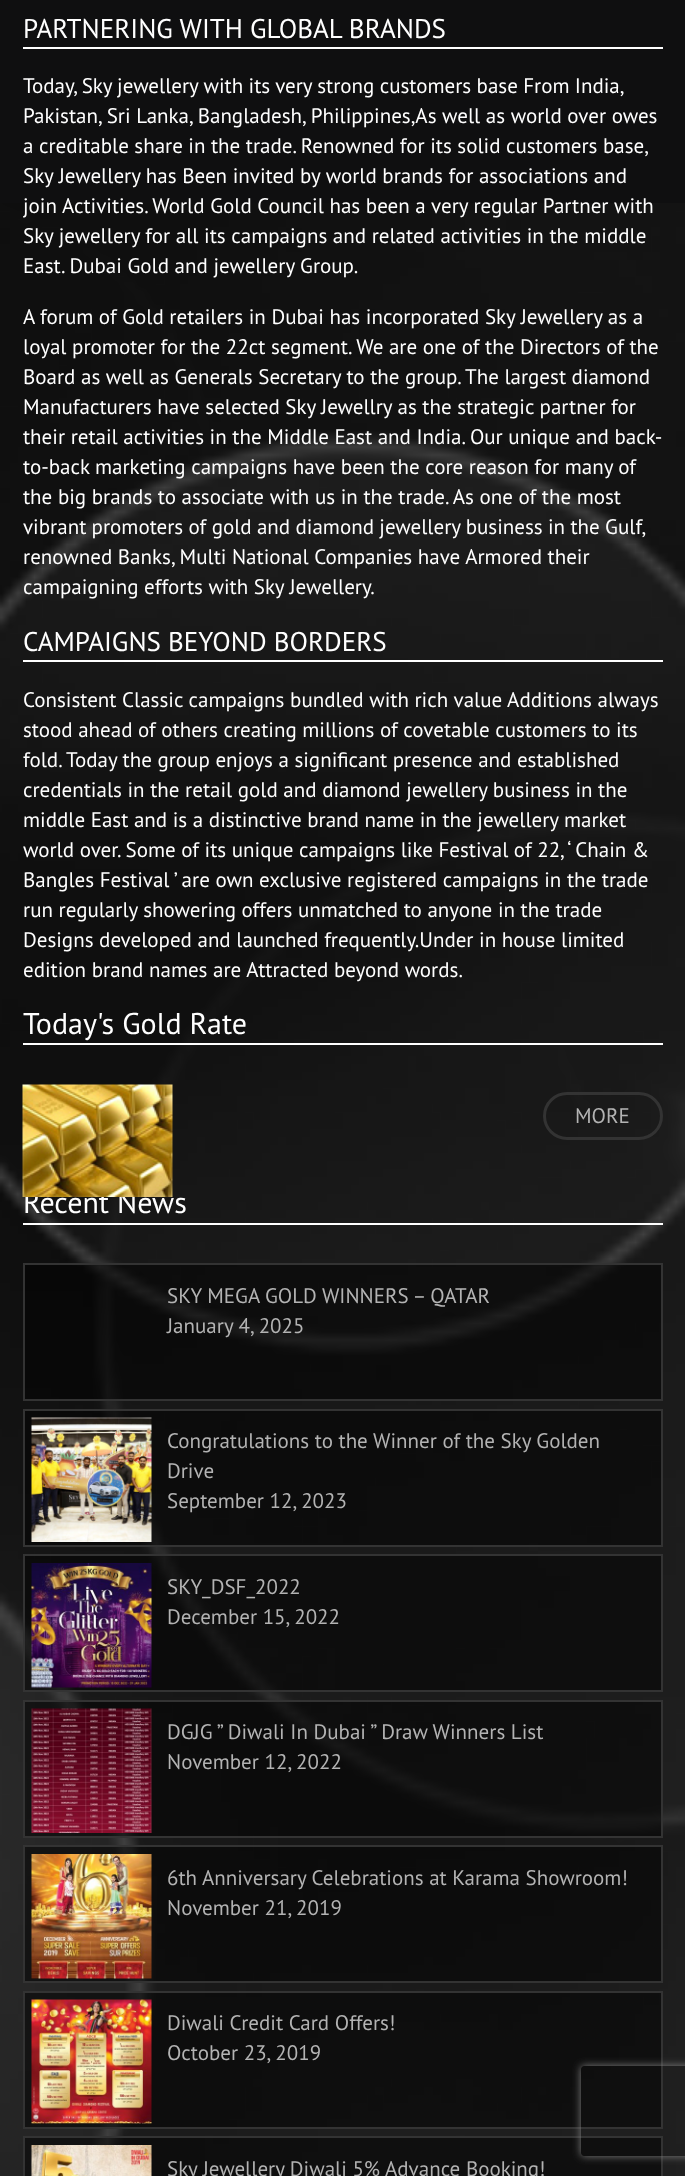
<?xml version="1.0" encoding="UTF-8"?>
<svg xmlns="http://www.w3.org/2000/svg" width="685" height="2176">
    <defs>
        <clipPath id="clip1"><path d="M 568 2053 H 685 V 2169 H 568 Z M 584 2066 H 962 C 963.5 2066 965 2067.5 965 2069 V 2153 C 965 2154.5 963.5 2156 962 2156 H 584 C 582.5 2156 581 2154.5 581 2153 V 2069 C 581 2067.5 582.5 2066 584 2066 Z" clip-rule="evenodd"/></clipPath>
        <filter id="blur1" x="-50%" y="-200%" width="200%" height="500%"><feGaussianBlur stdDeviation="4"/></filter>
    </defs>
    <rect width="100%" height="100%" fill="#0F0F10"/>
    <image x="0" y="203" width="685" height="1973" href="img_01.png"/>
    <rect x="23" y="47" width="640" height="2" fill="#FFFFFF"/>
    <text x="23" y="38" font-family="PT Sans" font-size="27" fill="#FFFFFF">PARTNERING WITH GLOBAL BRANDS</text>
    <text font-family="PT Sans" font-size="21" fill="#FFFFFF">
        <tspan x="23" y="93" word-spacing="-0.25">Today, Sky jewellery with its very strong customers base From India,</tspan>
        <tspan x="23" y="123">Pakistan, Sri Lanka, Bangladesh, Philippines,As well as world over owes</tspan>
        <tspan x="23" y="153" word-spacing="-0.1">a creditable share in the trade. Renowned for its solid customers base,</tspan>
        <tspan x="23" y="183">Sky Jewellery has Been invited by world brands for associations and</tspan>
        <tspan x="23" y="213">join Activities. World Gold Council has been a very regular Partner with</tspan>
        <tspan x="23" y="243">Sky jewellery for all its campaigns and related activities in the middle</tspan>
        <tspan x="23" y="273">East. Dubai Gold and jewellery Group.</tspan>
    </text>
    <text font-family="PT Sans" font-size="21" fill="#FFFFFF">
        <tspan x="23" y="324">A forum of Gold retailers in Dubai has incorporated Sky Jewellery as a</tspan>
        <tspan x="23" y="354">loyal promoter for the 22ct segment. We are one of the Directors of the</tspan>
        <tspan x="23" y="384">Board as well as Generals Secretary to the group. The largest diamond</tspan>
        <tspan x="23" y="414">Manufacturers have selected Sky Jewellry as the strategic partner for</tspan>
        <tspan x="23" y="444">their retail activities in the Middle East and India. Our unique and back-</tspan>
        <tspan x="23" y="474">to-back marketing campaigns have been the core reason for many of</tspan>
        <tspan x="23" y="504">the big brands to associate with us in the trade. As one of the most</tspan>
        <tspan x="23" y="534" word-spacing="-0.25">vibrant promoters of gold and diamond jewellery business in the Gulf,</tspan>
        <tspan x="23" y="564">renowned Banks, Multi National Companies have Armored their</tspan>
        <tspan x="23" y="594">campaigning efforts with Sky Jewellery.</tspan>
    </text>
    <rect x="23" y="660" width="640" height="2" fill="#FFFFFF"/>
    <text x="23" y="651" font-family="PT Sans" font-size="27" fill="#FFFFFF">CAMPAIGNS BEYOND BORDERS</text>
    <text font-family="PT Sans" font-size="21" fill="#FFFFFF">
        <tspan x="23" y="707">Consistent Classic campaigns bundled with rich value Additions always</tspan>
        <tspan x="23" y="737">stood ahead of others creating millions of covetable customers to its</tspan>
        <tspan x="23" y="767">fold. Today the group enjoys a significant presence and established</tspan>
        <tspan x="23" y="797">credentials in the retail gold and diamond jewellery business in the</tspan>
        <tspan x="23" y="827">middle East and is a distinctive brand name in the jewellery market</tspan>
        <tspan x="23" y="857">world over. Some of its unique campaigns like Festival of 22, ‘ Chain &amp;</tspan>
        <tspan x="23" y="887">Bangles Festival ’ are own exclusive registered campaigns in the trade</tspan>
        <tspan x="23" y="917">run regularly showering offers unmatched to anyone in the trade</tspan>
        <tspan x="23" y="947">Designs developed and launched frequently.Under in house limited</tspan>
        <tspan x="23" y="977">edition brand names are Attracted beyond words.</tspan>
    </text>
    <rect x="23" y="1043" width="640" height="2" fill="#FFFFFF"/>
    <text x="23" y="1034" font-family="PT Sans" font-size="30" fill="#FFFFFF">Today's Gold Rate</text>
    <text x="23" y="1213" font-family="PT Sans" font-size="30" fill="#FFFFFF">Recent News</text>
    <image x="22" y="1084" width="151" height="113" href="img_02.png"/>
    <rect x="544.5" y="1093.5" width="117" height="45" rx="22.5" fill="none" stroke="#333333" stroke-width="3"/>
    <text x="575" y="1123" font-family="PT Sans" font-size="21" fill="#B3B3B3">MORE</text>
    <rect x="23" y="1223" width="640" height="2" fill="#FFFFFF"/>
    <rect x="24" y="1264" width="638" height="136" fill="#000000" fill-opacity="0.5" stroke="#333333" stroke-width="2"/>
    <text font-family="PT Sans" font-size="21" fill="#B3B3B3">
        <tspan x="167" y="1303">SKY MEGA GOLD WINNERS – QATAR</tspan>
        <tspan x="167" y="1333">January 4, 2025</tspan>
    </text>
    <rect x="24" y="1410" width="638" height="136" fill="#000000" fill-opacity="0.5" stroke="#333333" stroke-width="2"/>
    <image x="31" y="1417" width="121" height="125" href="img_03.png"/>
    <text font-family="PT Sans" font-size="21" fill="#B3B3B3">
        <tspan x="167" y="1448">Congratulations to the Winner of the Sky Golden</tspan>
        <tspan x="167" y="1478">Drive</tspan>
        <tspan x="167" y="1508">September 12, 2023</tspan>
    </text>
    <rect x="24" y="1555" width="638" height="136" fill="#000000" fill-opacity="0.5" stroke="#333333" stroke-width="2"/>
    <image x="31" y="1563" width="121" height="125" href="img_04.png"/>
    <text font-family="PT Sans" font-size="21" fill="#B3B3B3">
        <tspan x="167" y="1594">SKY_DSF_2022</tspan>
        <tspan x="167" y="1624">December 15, 2022</tspan>
    </text>
    <rect x="24" y="1701" width="638" height="136" fill="#000000" fill-opacity="0.5" stroke="#333333" stroke-width="2"/>
    <image x="31" y="1708" width="121" height="125" href="img_05.png"/>
    <text font-family="PT Sans" font-size="21" fill="#B3B3B3">
        <tspan x="167" y="1739">DGJG ” Diwali In Dubai ” Draw Winners List</tspan>
        <tspan x="167" y="1769">November 12, 2022</tspan>
    </text>
    <rect x="24" y="1846" width="638" height="136" fill="#000000" fill-opacity="0.5" stroke="#333333" stroke-width="2"/>
    <image x="31" y="1854" width="121" height="125" href="img_06.png"/>
    <text font-family="PT Sans" font-size="21" fill="#B3B3B3">
        <tspan x="167" y="1885">6th Anniversary Celebrations at Karama Showroom!</tspan>
        <tspan x="167" y="1915">November 21, 2019</tspan>
    </text>
    <rect x="24" y="1992" width="638" height="136" fill="#000000" fill-opacity="0.5" stroke="#333333" stroke-width="2"/>
    <image x="31" y="1999" width="121" height="125" href="img_07.png"/>
    <text font-family="PT Sans" font-size="21" fill="#B3B3B3">
        <tspan x="167" y="2030">Diwali Credit Card Offers!</tspan>
        <tspan x="167" y="2060">October 23, 2019</tspan>
    </text>
    <rect x="24" y="2137" width="638" height="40" fill="#000000" fill-opacity="0.5" stroke="#333333" stroke-width="2"/>
    <image x="31" y="2145" width="121" height="31" href="img_08.png"/>
    <text x="167" y="2176" font-family="PT Sans" font-size="21" fill="#B3B3B3">Sky Jewellery Diwali 5% Advance Booking!</text>
    <g clip-path="url(#clip1)">
        <rect x="581" y="2066" width="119" height="90" rx="3" fill="#808080" filter="url(#blur1)"/>
    </g>
</svg>
